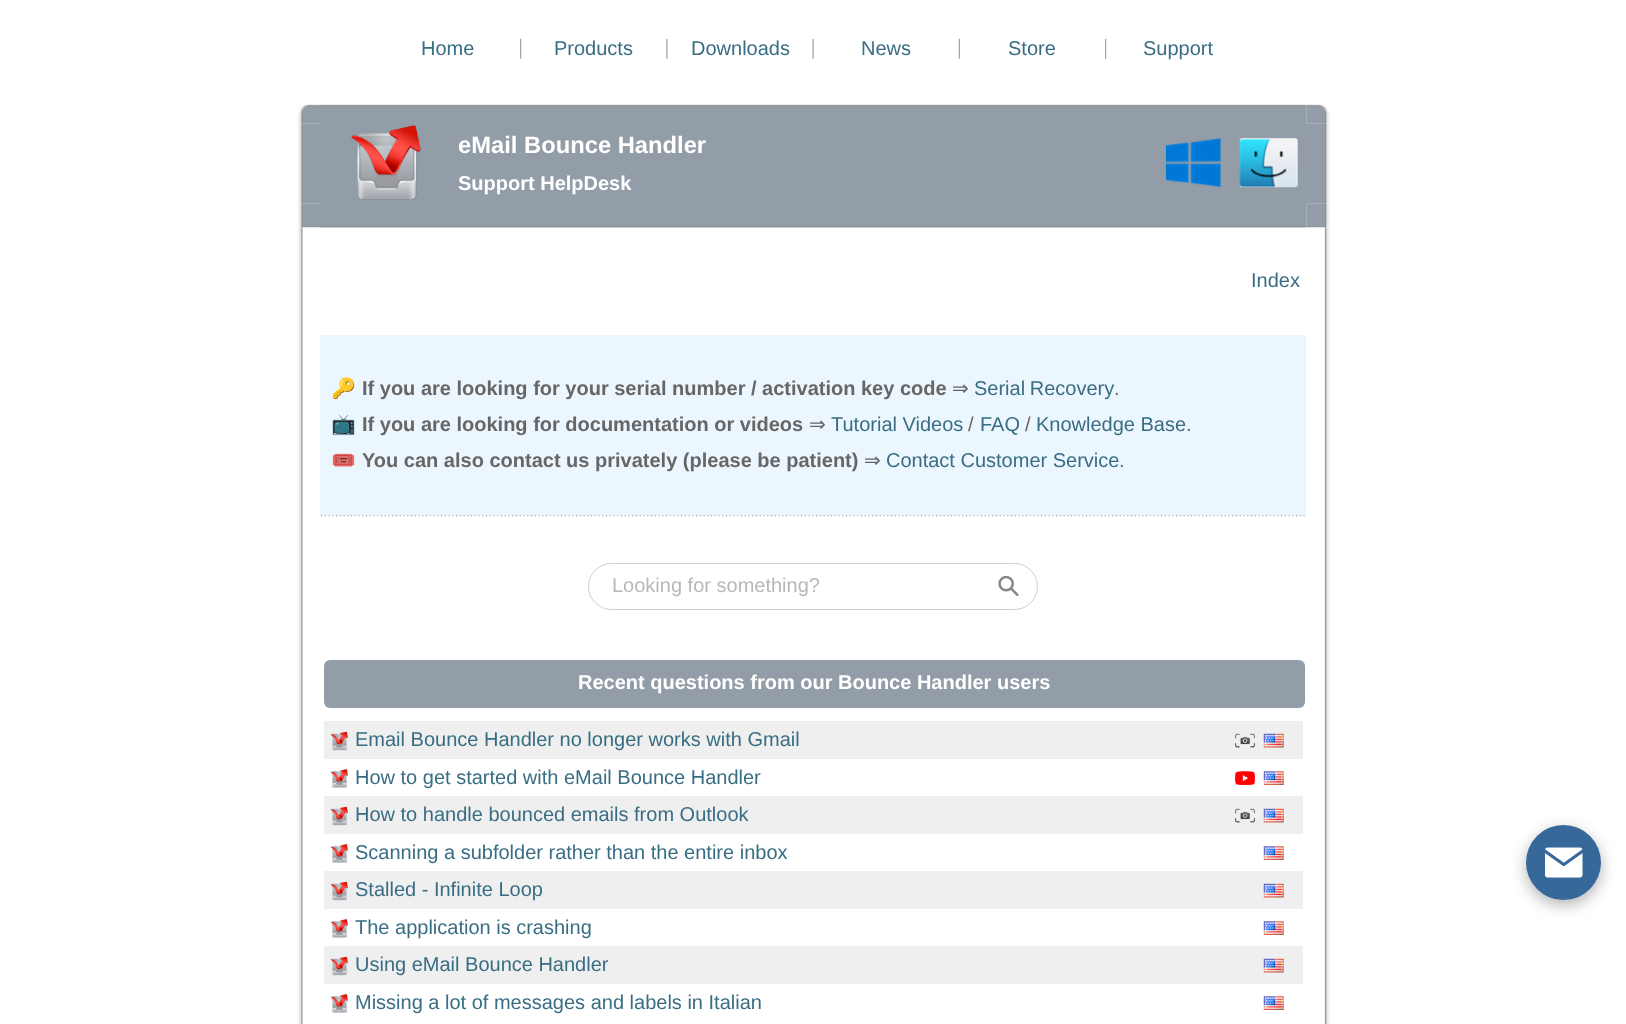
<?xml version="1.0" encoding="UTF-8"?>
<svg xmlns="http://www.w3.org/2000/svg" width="1626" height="1024">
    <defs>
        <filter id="blur1" x="-50%" y="-200%" width="200%" height="500%"><feGaussianBlur stdDeviation="7.5"/></filter>
    </defs>
    <rect width="100%" height="100%" fill="#FFFFFF"/>
    <text x="421" y="55" font-family="Liberation Sans" font-size="20" fill="#396D84">Home</text>
    <image x="520" y="38" width="2" height="21" href="img_01.png"/>
    <text x="554" y="55" font-family="Liberation Sans" font-size="20" fill="#396D84">Products</text>
    <image x="666" y="38" width="2" height="21" href="img_02.png"/>
    <text x="691" y="55" font-family="Liberation Sans" font-size="20" fill="#396D84">Downloads</text>
    <image x="812" y="38" width="2" height="21" href="img_03.png"/>
    <text x="861" y="55" font-family="Liberation Sans" font-size="20" fill="#396D84">News</text>
    <image x="958" y="38" width="2" height="21" href="img_04.png"/>
    <text x="1008" y="55" font-family="Liberation Sans" font-size="20" fill="#396D84">Store</text>
    <image x="1105" y="38" width="2" height="21" href="img_01.png"/>
    <text x="1143" y="55" font-family="Liberation Sans" font-size="20" fill="#396D84">Support</text>
    <image x="297" y="104" width="23" height="20" href="img_05.png"/>
    <image x="320" y="104" width="987" height="19" href="img_06.png"/>
    <image x="1306" y="104" width="24" height="20" href="img_07.png"/>
    <image x="298" y="123" width="22" height="81" href="img_08.png"/>
    <rect x="320" y="123" width="987" height="81" fill="#939DA8"/>
    <image x="351" y="125" width="70" height="75" href="img_09.png"/>
    <text x="458" y="153" font-family="Liberation Sans" font-size="23.75" font-weight="700" fill="#FFFFFF">eMail Bounce Handler</text>
    <text x="458" y="190" font-family="Liberation Sans" font-size="20" font-weight="700" fill="#FFFFFF">Support HelpDesk</text>
    <image x="1165" y="138" width="56" height="50" href="img_10.png"/>
    <image x="1239" y="138" width="59" height="50" href="img_11.png"/>
    <image x="1307" y="123" width="23" height="81" href="img_12.png"/>
    <image x="297" y="203" width="23" height="25" href="img_13.png"/>
    <image x="320" y="204" width="987" height="24" href="img_14.png"/>
    <image x="1306" y="203" width="24" height="25" href="img_15.png"/>
    <image x="297" y="227" width="23" height="797" href="img_16.png"/>
    <text x="1251" y="287" font-family="Liberation Sans" font-size="20" fill="#396D84">Index</text>
    <rect x="320" y="335" width="986" height="180" fill="#ECF6FE"/>
    <text x="331" y="395" font-family="Noto Color Emoji" font-size="20" font-weight="700" fill="#666666">🔑</text>
    <text x="362" y="395" font-family="Liberation Sans" font-size="20" font-weight="700" fill="#666666">If you are looking for your serial number / activation key code</text>
    <text x="952" y="395" font-family="DejaVu Sans" font-size="20" fill="#666666">⇒</text>
    <text x="974" y="395" word-spacing="-1" font-family="Liberation Sans" font-size="20" fill="#396D84">Serial Recovery</text>
    <text x="1114" y="395" font-family="Liberation Sans" font-size="20" fill="#666666">.</text>
    <text x="331" y="431" font-family="Noto Color Emoji" font-size="20" font-weight="700" fill="#666666">📺</text>
    <text x="362" y="431" font-family="Liberation Sans" font-size="20" font-weight="700" fill="#666666">If you are looking for documentation or videos</text>
    <text x="809" y="431" font-family="DejaVu Sans" font-size="20" fill="#666666">⇒</text>
    <text x="831" y="431" font-family="Liberation Sans" font-size="20" fill="#396D84">Tutorial Videos</text>
    <text x="968" y="431" font-family="Liberation Sans" font-size="20" fill="#666666">/</text>
    <text x="980" y="431" font-family="Liberation Sans" font-size="20" fill="#396D84">FAQ</text>
    <text x="1025" y="431" font-family="Liberation Sans" font-size="20" fill="#666666">/</text>
    <text x="1036" y="431" font-family="Liberation Sans" font-size="20" fill="#396D84">Knowledge Base</text>
    <text x="1186" y="431" font-family="Liberation Sans" font-size="20" fill="#666666">.</text>
    <text x="331" y="467" font-family="Noto Color Emoji" font-size="20" font-weight="700" fill="#666666">🎟️</text>
    <text x="362" y="467" font-family="Liberation Sans" font-size="20" font-weight="700" fill="#666666">You can also contact us privately (please be patient)</text>
    <text x="864" y="467" font-family="DejaVu Sans" font-size="20" fill="#666666">⇒</text>
    <text x="886" y="467" font-family="Liberation Sans" font-size="20" fill="#396D84">Contact Customer Service</text>
    <text x="1119" y="467" font-family="Liberation Sans" font-size="20" fill="#666666">.</text>
    <image x="320" y="515" width="985" height="2" href="img_17.png"/>
    <rect x="588.5" y="563.5" width="449" height="46" rx="23" fill="none" stroke="#CFCFCF"/>
    <text x="612" y="592" font-family="Liberation Sans" font-size="20" fill="#B8B8B8">Looking for something?</text>
    <image x="998" y="575" width="21" height="22" href="img_18.png"/>
    <rect x="324" y="660" width="981" height="48" rx="6" fill="#939DA8"/>
    <text x="578" y="689" font-family="Liberation Sans" font-size="20" font-weight="700" fill="#FFFFFF">Recent questions from our Bounce Handler users</text>
    <rect x="324" y="721" width="979" height="38" fill="#EFEFEF"/>
    <image x="330" y="731" width="18" height="20" href="img_19.png"/>
    <text x="355" y="746" font-family="Liberation Sans" font-size="20" fill="#396D84">Email Bounce Handler no longer works with Gmail</text>
    <image x="1235" y="733" width="20" height="15" href="img_20.png"/>
    <image x="1263" y="733" width="21" height="15" href="img_21.png"/>
    <image x="330" y="768" width="18" height="20" href="img_22.png"/>
    <text x="355" y="784" font-family="Liberation Sans" font-size="20" fill="#396D84">How to get started with eMail Bounce Handler</text>
    <image x="1235" y="771" width="20" height="14" href="img_23.png"/>
    <image x="1263" y="771" width="21" height="14" href="img_24.png"/>
    <rect x="324" y="796" width="979" height="38" fill="#EFEFEF"/>
    <image x="330" y="806" width="18" height="20" href="img_19.png"/>
    <text x="355" y="821" font-family="Liberation Sans" font-size="20" fill="#396D84">How to handle bounced emails from Outlook</text>
    <image x="1235" y="808" width="20" height="15" href="img_20.png"/>
    <image x="1263" y="808" width="21" height="15" href="img_21.png"/>
    <image x="330" y="843" width="18" height="20" href="img_22.png"/>
    <text x="355" y="859" font-family="Liberation Sans" font-size="20" fill="#396D84">Scanning a subfolder rather than the entire inbox</text>
    <image x="1263" y="846" width="21" height="14" href="img_24.png"/>
    <rect x="324" y="871" width="979" height="38" fill="#EFEFEF"/>
    <image x="330" y="881" width="18" height="20" href="img_19.png"/>
    <text x="355" y="896" font-family="Liberation Sans" font-size="20" fill="#396D84">Stalled - Infinite Loop</text>
    <image x="1263" y="883" width="21" height="15" href="img_21.png"/>
    <image x="330" y="918" width="18" height="20" href="img_22.png"/>
    <text x="355" y="934" font-family="Liberation Sans" font-size="20" fill="#396D84">The application is crashing</text>
    <image x="1263" y="921" width="21" height="14" href="img_24.png"/>
    <rect x="324" y="946" width="979" height="38" fill="#EFEFEF"/>
    <image x="330" y="956" width="18" height="20" href="img_19.png"/>
    <text x="355" y="971" font-family="Liberation Sans" font-size="20" fill="#396D84">Using eMail Bounce Handler</text>
    <image x="1263" y="958" width="21" height="15" href="img_21.png"/>
    <image x="330" y="993" width="18" height="20" href="img_22.png"/>
    <text x="355" y="1009" font-family="Liberation Sans" font-size="20" fill="#396D84">Missing a lot of messages and labels in Italian</text>
    <image x="1263" y="996" width="21" height="14" href="img_24.png"/>
    <image x="1306" y="227" width="24" height="797" href="img_25.png"/>
    <rect x="1526" y="830" width="75" height="75" rx="37.5" fill="#000000" fill-opacity="0.3" filter="url(#blur1)"/>
    <circle cx="1563.5" cy="862.5" r="37.5" fill="#366899"/>
    <image x="1545" y="847" width="38" height="31" href="img_26.png"/>
</svg>
